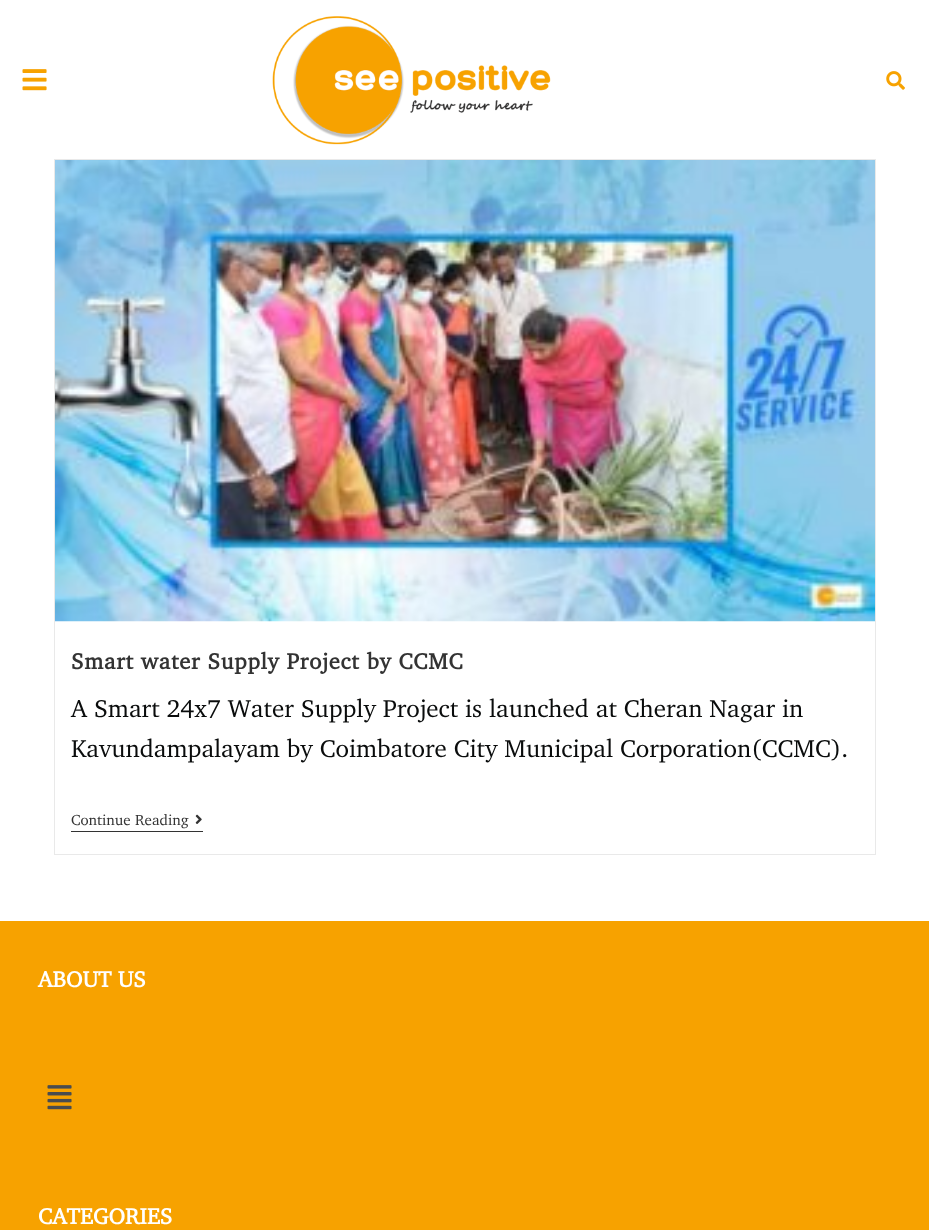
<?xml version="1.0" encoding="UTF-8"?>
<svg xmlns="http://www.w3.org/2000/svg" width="929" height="1230">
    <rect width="100%" height="100%" fill="#FFFFFF"/>
    <image x="22" y="69" width="25" height="22" href="img_01.png"/>
    <image x="272" y="16" width="279" height="129" href="img_02.png"/>
    <image x="886" y="71" width="19" height="19" href="img_03.png"/>
    <rect x="54.5" y="159.5" width="821" height="695" fill="none" stroke="#E9E9E9"/>
    <image x="55" y="160" width="820" height="462" href="img_04.png"/>
    <text x="71" y="669" font-family="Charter" font-size="22.5" font-weight="700" letter-spacing="0.75" fill="#333333">Smart water Supply Project by CCMC</text>
    <text font-family="Charter" font-size="25" fill="#0A0C0C">
        <tspan x="71" y="717">A Smart 24x7 Water Supply Project is launched at Cheran Nagar in</tspan>
        <tspan x="71" y="757">Kavundampalayam by Coimbatore City Municipal Corporation(CCMC).</tspan>
    </text>
    <rect x="71" y="831" width="132" height="1" fill="#333333"/>
    <text x="71" y="825" font-family="Charter" font-size="15" fill="#333333">Continue Reading</text>
    <image x="195" y="814" width="7" height="10" href="img_05.png"/>
    <rect x="0" y="921" width="929" height="309" fill="#F7A200"/>
    <text x="38" y="987" font-family="Charter" font-size="22.5" font-weight="700" fill="#FFFFFF">ABOUT US</text>
    <image x="47" y="1085" width="25" height="25" href="img_06.png"/>
    <text x="38" y="1224" font-family="Charter" font-size="22.5" font-weight="700" fill="#FFFFFF">CATEGORIES</text>
</svg>
